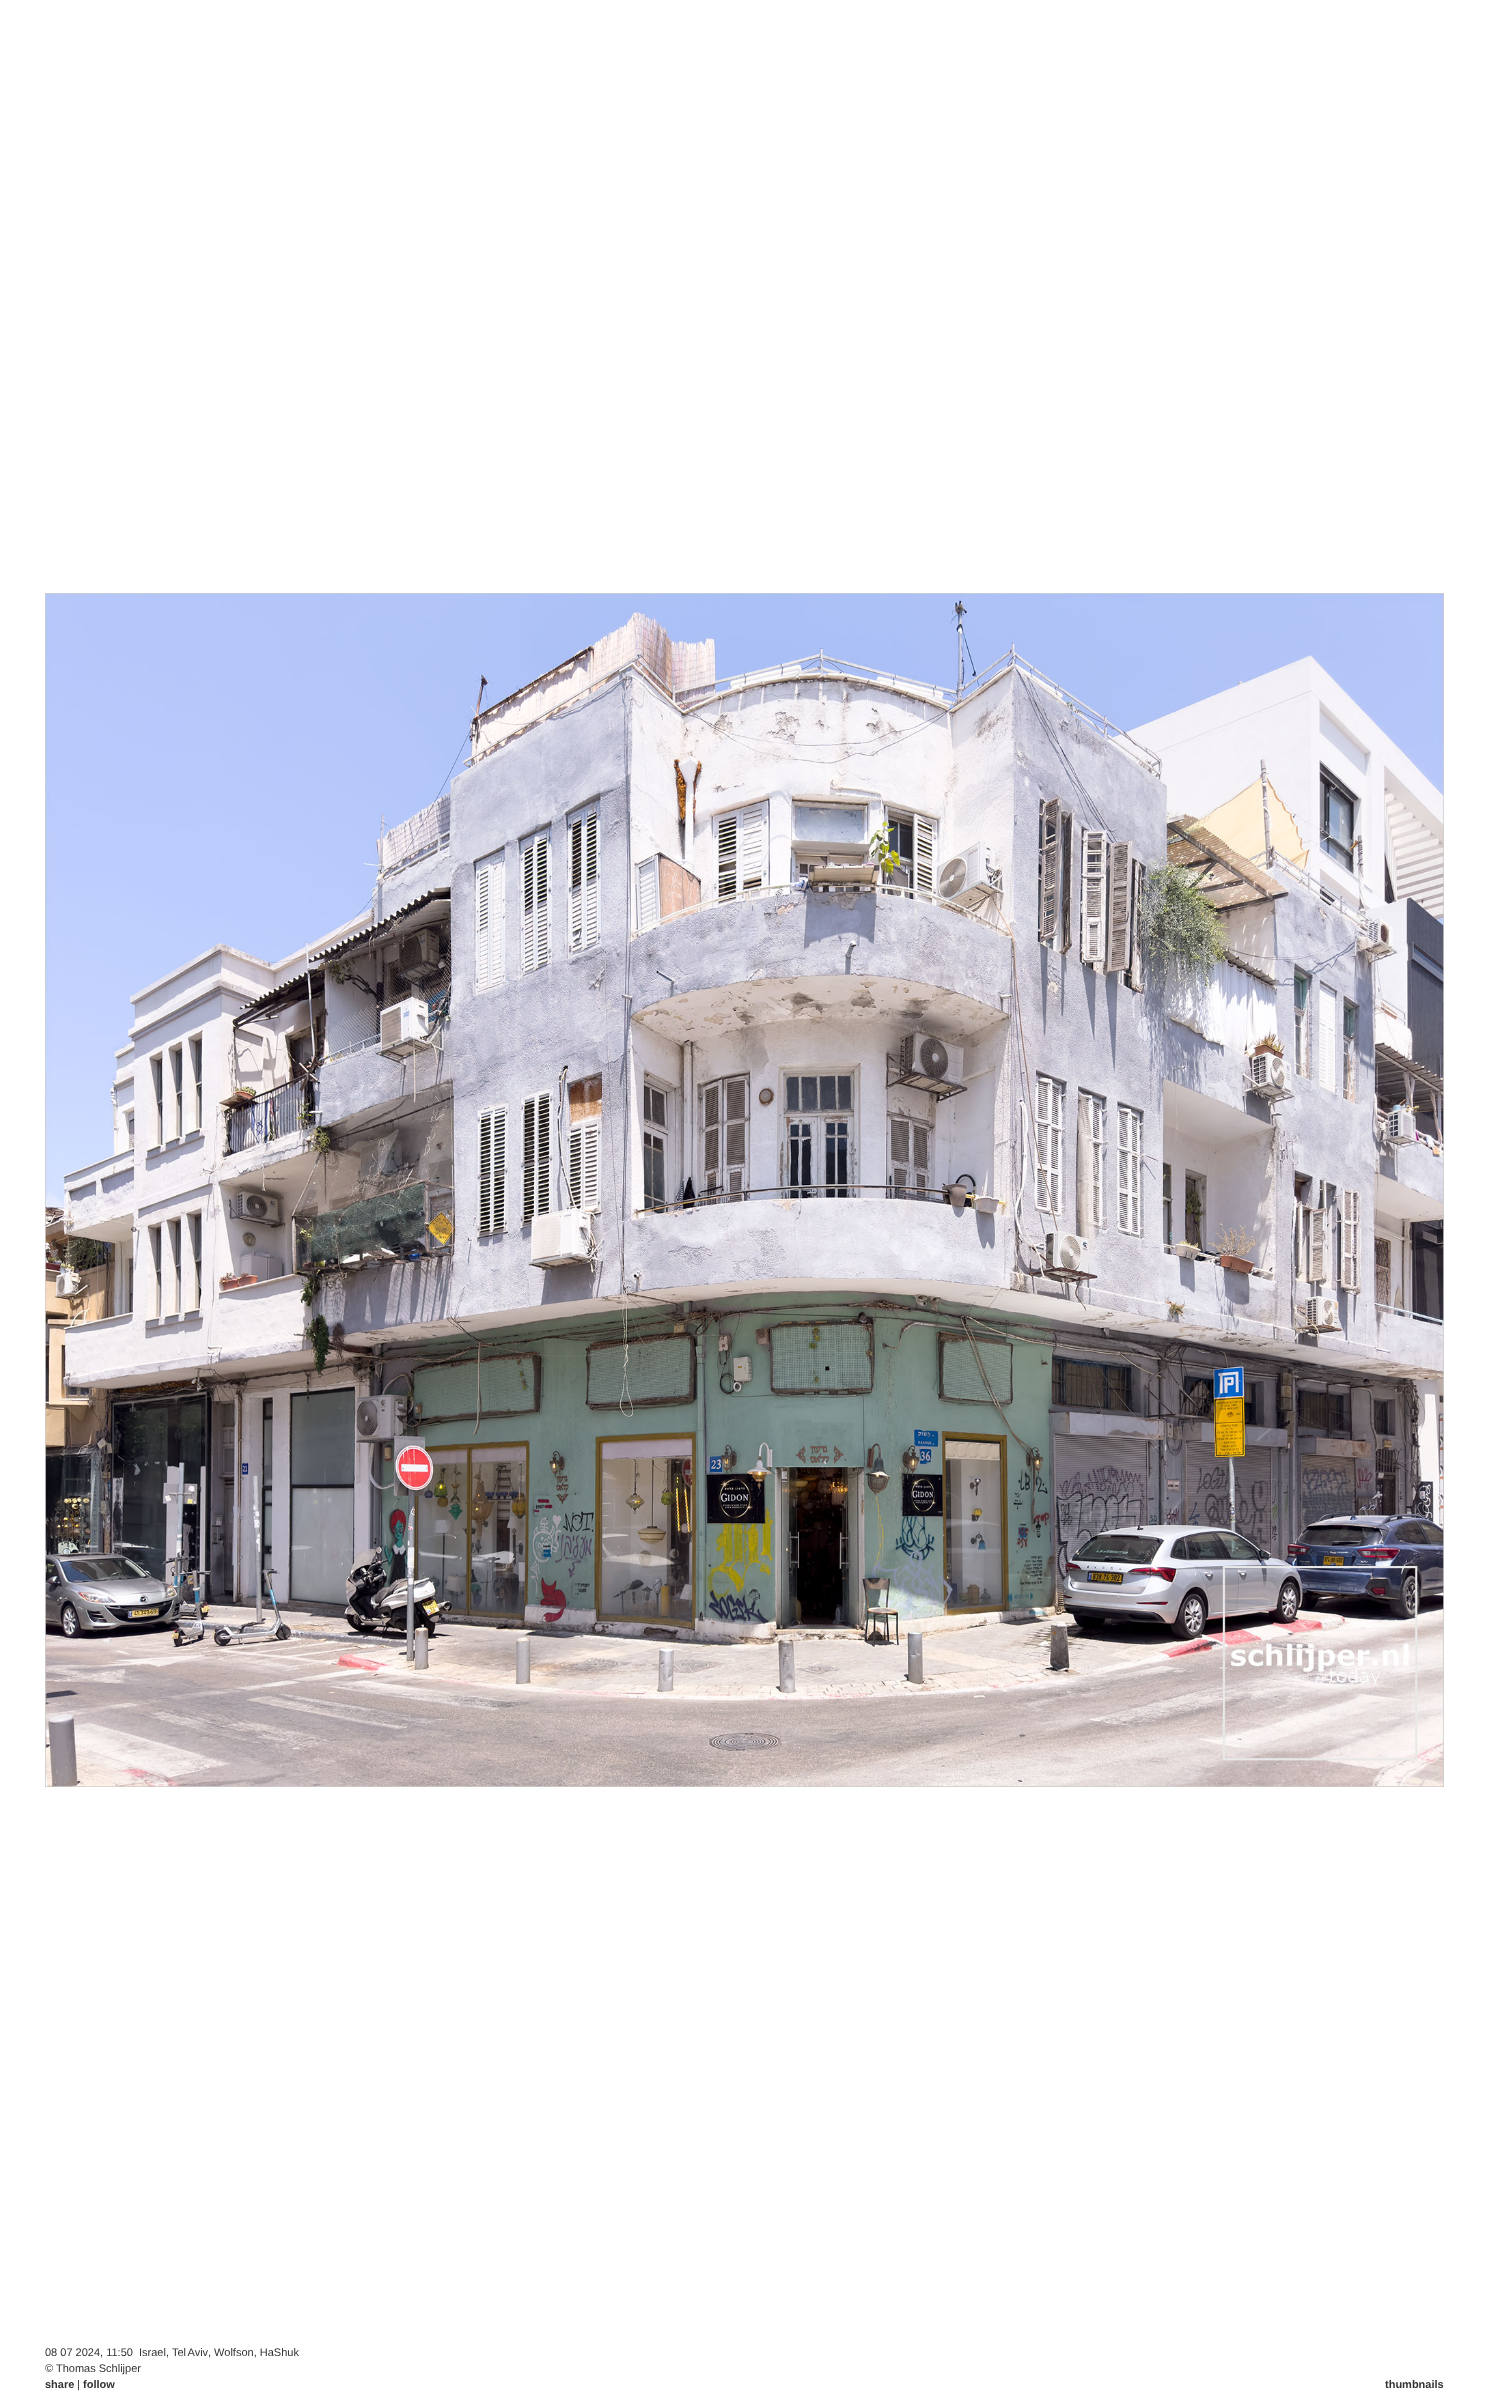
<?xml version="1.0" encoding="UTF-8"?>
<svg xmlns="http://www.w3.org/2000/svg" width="1489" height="2407">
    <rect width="100%" height="100%" fill="#FFFFFF"/>
    <image x="45" y="593" width="1399" height="1194" href="img_01.png"/>
    <text x="45" y="2356" font-family="Liberation Sans" font-size="11" fill="#333333">08 07 2024, 11:50</text>
    <text x="139" y="2356" font-family="Liberation Sans" font-size="11" fill="#333333">Israel,</text>
    <text x="172" y="2356" word-spacing="-1" font-family="Liberation Sans" font-size="11" fill="#333333">Tel Aviv</text>
    <text x="208" y="2356" font-family="Liberation Sans" font-size="11" fill="#333333">, Wolfson, HaShuk</text>
    <text x="45" y="2372" font-family="Liberation Sans" font-size="11" fill="#333333">© Thomas Schlijper</text>
    <text x="45" y="2388" font-family="Liberation Sans" font-size="11" font-weight="700" fill="#333333">share</text>
    <text x="77" y="2388" font-family="Liberation Sans" font-size="11" fill="#333333">|</text>
    <text x="83" y="2388" font-family="Liberation Sans" font-size="11" font-weight="700" fill="#333333">follow</text>
    <text x="1385" y="2388" font-family="Liberation Sans" font-size="11" font-weight="700" fill="#333333">thumbnails</text>
</svg>
